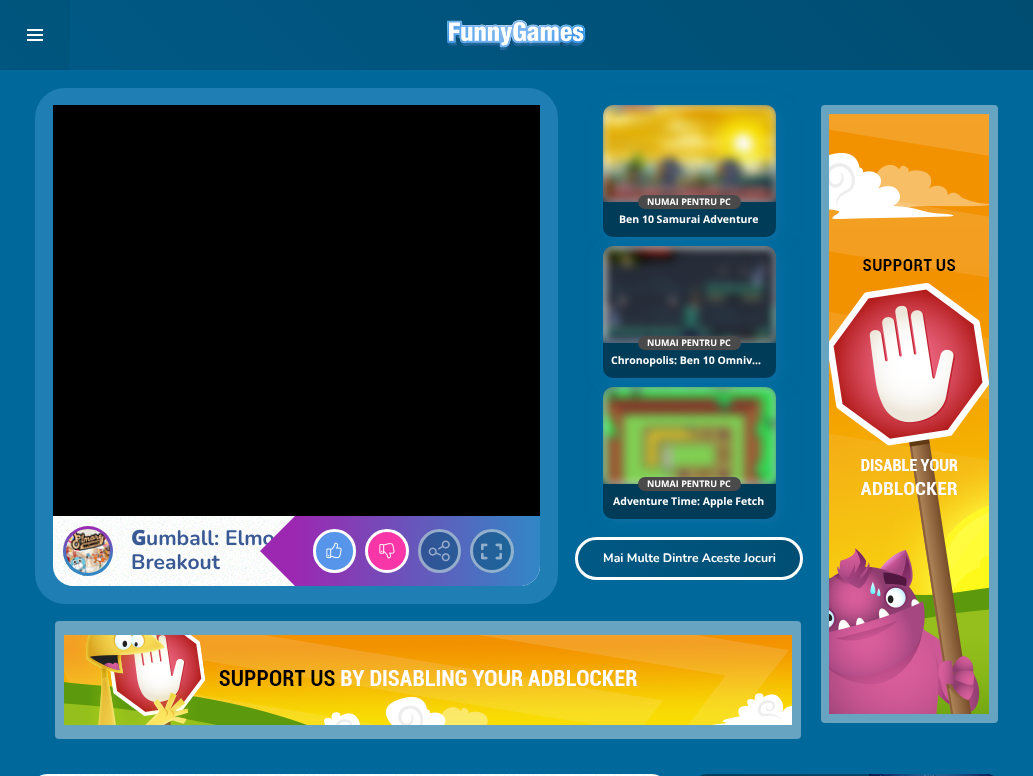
<?xml version="1.0" encoding="UTF-8"?>
<svg xmlns="http://www.w3.org/2000/svg" width="1033" height="776">
    <defs>
        <linearGradient id="g1" gradientUnits="userSpaceOnUse" x1="241" y1="311" x2="792" y2="-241"><stop offset="0" stop-color="#005A86"/><stop offset="1" stop-color="#004D72"/></linearGradient>
        <linearGradient id="g2" gradientUnits="userSpaceOnUse" x1="241" y1="311" x2="792" y2="-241"><stop offset="0" stop-color="#00567F"/><stop offset="1" stop-color="#00496C"/></linearGradient>
        <linearGradient id="g3" gradientUnits="userSpaceOnUse" x1="295" y1="551" x2="540" y2="551"><stop offset="0" stop-color="#9C28B1"/><stop offset="1" stop-color="#3187C6"/></linearGradient>
        <filter id="blur1" x="-50%" y="-200%" width="200%" height="500%"><feGaussianBlur stdDeviation="10"/></filter>
        <clipPath id="clip1"><rect x="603" y="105" width="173" height="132" rx="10"/></clipPath>
        <clipPath id="clip2"><rect x="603" y="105" width="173" height="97"/></clipPath>
        <filter id="blur2" x="-50%" y="-200%" width="200%" height="500%"><feGaussianBlur stdDeviation="5"/></filter>
        <clipPath id="clip3"><rect x="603" y="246" width="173" height="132" rx="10"/></clipPath>
        <clipPath id="clip4"><rect x="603" y="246" width="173" height="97"/></clipPath>
        <clipPath id="clip5"><rect x="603" y="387" width="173" height="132" rx="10"/></clipPath>
        <clipPath id="clip6"><rect x="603" y="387" width="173" height="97"/></clipPath>
        <clipPath id="clip7"><rect x="575" y="537" width="228" height="43" rx="21.5"/></clipPath>
        <linearGradient id="g4" gradientUnits="userSpaceOnUse" x1="624" y1="623" x2="754" y2="494"><stop offset="0" stop-color="#005A86"/><stop offset="1" stop-color="#004D72"/></linearGradient>
        <linearGradient id="g5" gradientUnits="userSpaceOnUse" x1="755" y1="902" x2="940" y2="717"><stop offset="0" stop-color="#003B58"/><stop offset="1" stop-color="#004D72"/></linearGradient>
    </defs>
    <rect width="100%" height="100%" fill="#00689A"/>
    <rect x="70" y="0" width="963" height="70" fill="url(#g1)"/>
    <rect x="0" y="0" width="70" height="70" fill="url(#g2)"/>
    <rect x="27" y="29" width="16" height="2" fill="#FFFFFF"/>
    <rect x="27" y="34" width="16" height="2" fill="#FFFFFF"/>
    <rect x="27" y="39" width="16" height="2" fill="#FFFFFF"/>
    <image x="447" y="20" width="139" height="30" href="img_01.png"/>
    <rect x="35" y="88" width="523" height="516" rx="30" fill="#1F7FB5"/>
    <rect x="53" y="105" width="487" height="411" fill="#000000"/>
    <path d="M 53 516 H 540 V 566 C 540 577 531 586 520 586 H 73 C 62 586 53 577 53 566 Z" fill="#FFFFFF"/>
    <image x="53" y="516" width="484" height="70" href="img_02.png"/>
    <image x="63" y="526" width="50" height="50" href="img_03.png"/>
    <image x="63" y="526" width="50" height="50" href="img_04.png"/>
    <text x="131" y="545" font-family="Noto Sans" font-size="21" font-weight="900" fill="#3A5A95">G</text>
    <text x="146" y="545" font-family="Nunito" font-size="21" font-weight="700" fill="#3A5A95">umball: Elmo</text>
    <text x="131" y="569" font-family="Nunito" font-size="21" font-weight="700" fill="#3A5A95">Breakout</text>
    <path d="M 295 516 H 540 V 566 C 540 577 531 586 520 586 H 295 Z" fill="url(#g3)"/>
    <path d="M 260 551 L 295 516 V 586 Z" fill="#9C28B1"/>
    <rect x="314.5" y="530.5" width="40" height="41" rx="20" fill="#5795EA" stroke="#FFFFFF" stroke-width="3"/>
    <image x="326" y="542" width="16" height="17" href="img_05.png"/>
    <circle cx="387" cy="551" r="20.5" fill="#F836A8" stroke="#FFFFFF" stroke-width="3"/>
    <image x="379" y="543" width="16" height="16" href="img_06.png"/>
    <rect x="418" y="529" width="43" height="44" rx="21.5" fill="#004D72" fill-opacity="0.5"/>
    <rect x="419.5" y="530.5" width="40" height="41" rx="20" fill="none" stroke="#FFFFFF" stroke-opacity="0.5" stroke-width="3"/>
    <image x="428" y="540" width="22" height="22" href="img_07.png"/>
    <circle cx="492" cy="551" r="22" fill="#004D72" fill-opacity="0.5"/>
    <circle cx="492" cy="551" r="20.5" fill="none" stroke="#FFFFFF" stroke-opacity="0.5" stroke-width="3"/>
    <image x="481" y="543" width="21" height="17" href="img_08.png"/>
    <rect x="607" y="109" width="173" height="132" rx="10" fill="#1276AF" fill-opacity="0.5" filter="url(#blur1)"/>
    <rect x="603" y="105" width="173" height="132" rx="10" fill="#003B58"/>
    <g clip-path="url(#clip1)">
        <g clip-path="url(#clip2)">
            <rect x="603" y="105" width="173" height="97" rx="9" fill="#FAFAFA" filter="url(#blur2)"/>
        </g>
    </g>
    <image x="603" y="105" width="173" height="97" href="img_09.png"/>
    <rect x="638" y="195" width="103" height="14" rx="7" fill="#4A4A4A"/>
    <text x="647" y="205" font-family="Open Sans" font-size="9" font-weight="700" fill="#FFFFFF">NUMAI PENTRU PC</text>
    <text x="619" y="223" font-family="Open Sans" font-size="10.5" font-weight="700" fill="#FFFFFF">Ben 10 Samurai Adventure</text>
    <rect x="607" y="250" width="173" height="132" rx="10" fill="#1276AF" fill-opacity="0.5" filter="url(#blur1)"/>
    <rect x="603" y="246" width="173" height="132" rx="10" fill="#003B58"/>
    <g clip-path="url(#clip3)">
        <g clip-path="url(#clip4)">
            <rect x="603" y="246" width="173" height="97" rx="9" fill="#FAFAFA" filter="url(#blur2)"/>
        </g>
    </g>
    <image x="603" y="246" width="173" height="97" href="img_10.png"/>
    <rect x="638" y="336" width="103" height="14" rx="7" fill="#4A4A4A"/>
    <text x="647" y="346" font-family="Open Sans" font-size="9" font-weight="700" fill="#FFFFFF">NUMAI PENTRU PC</text>
    <text x="611" y="364" font-family="Open Sans" font-size="10.5" font-weight="700" fill="#FFFFFF">Chronopolis: Ben 10 Omniv…</text>
    <rect x="607" y="391" width="173" height="132" rx="10" fill="#1276AF" fill-opacity="0.5" filter="url(#blur1)"/>
    <rect x="603" y="387" width="173" height="132" rx="10" fill="#003B58"/>
    <g clip-path="url(#clip5)">
        <g clip-path="url(#clip6)">
            <rect x="603" y="387" width="173" height="97" rx="9" fill="#FAFAFA" filter="url(#blur2)"/>
        </g>
    </g>
    <image x="603" y="387" width="173" height="97" href="img_11.png"/>
    <rect x="638" y="477" width="103" height="14" rx="7" fill="#4A4A4A"/>
    <text x="647" y="487" font-family="Open Sans" font-size="9" font-weight="700" fill="#FFFFFF">NUMAI PENTRU PC</text>
    <text x="613" y="505" font-family="Open Sans" font-size="10.5" font-weight="700" fill="#FFFFFF">Adventure Time: Apple Fetch</text>
    <g clip-path="url(#clip7)">
        <rect x="578" y="540" width="222" height="37" fill="url(#g4)"/>
    </g>
    <rect x="576.5" y="538.5" width="225" height="40" rx="20" fill="none" stroke="#FFFFFF" stroke-width="3"/>
    <text x="603" y="562" font-family="Nunito" font-size="12.25" font-weight="700" fill="#FFFFFF">Mai Multe Dintre Aceste Jocuri</text>
    <rect x="55" y="621" width="746" height="118" rx="4" fill="#66A4C2"/>
    <image x="64" y="635" width="728" height="90" href="img_12.png"/>
    <rect x="821" y="105" width="177" height="618" rx="4" fill="#66A4C2"/>
    <image x="829" y="114" width="160" height="600" href="img_13.png"/>
    <rect x="37" y="774" width="625" height="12" rx="10" fill="#FFFFFF"/>
    <image x="42" y="774" width="615" height="2" href="img_14.png"/>
    <rect x="697" y="774" width="300" height="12" rx="10" fill="url(#g5)"/>
    <image x="869" y="774" width="124" height="2" href="img_15.png"/>
</svg>
